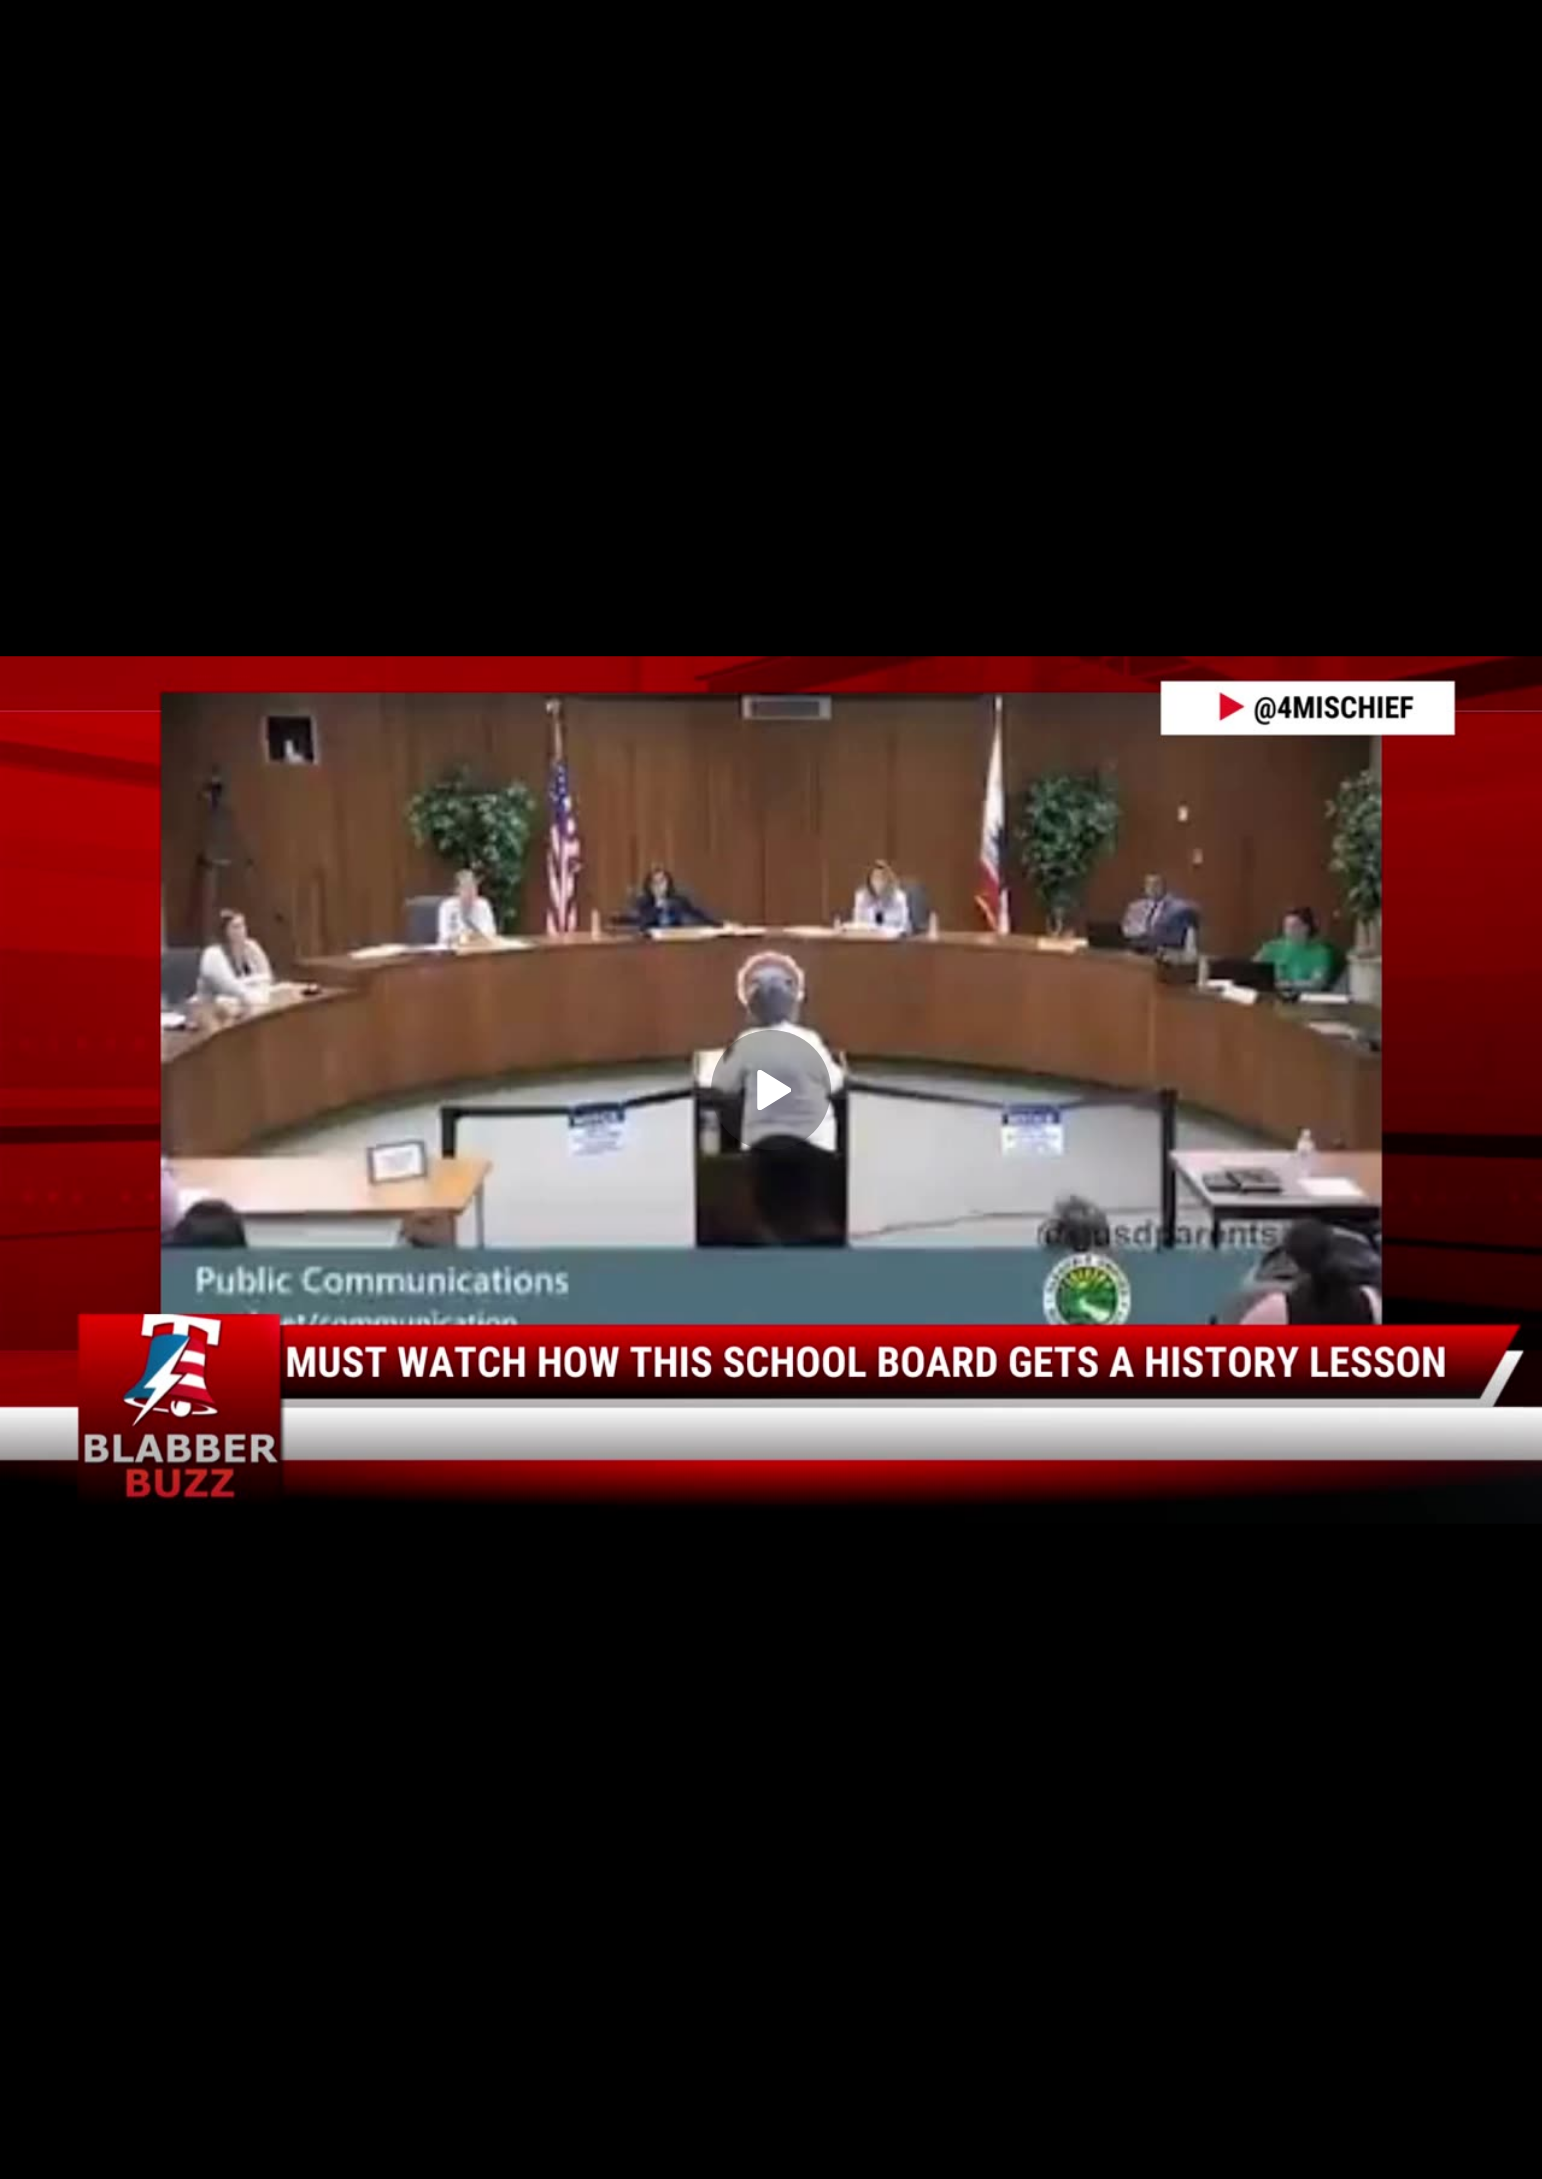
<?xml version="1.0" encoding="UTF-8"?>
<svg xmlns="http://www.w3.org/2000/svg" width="1542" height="2179">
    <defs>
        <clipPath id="clip1"><rect x="751" y="1070" width="40" height="40"/></clipPath>
    </defs>
    <rect width="100%" height="100%" fill="#000000"/>
    <image x="0" y="656" width="1542" height="868" href="img_01.png"/>
    <circle cx="771" cy="1090" r="60" fill="#303030" fill-opacity="0.4"/>
    <path d="M 788.5 1090 L 760 1072.5 V 1107.5 Z" fill="#FFFFFF"/>
    <g clip-path="url(#clip1)">
        <path d="M 788.5 1090 L 760 1072.5 V 1107.5 Z" fill="none" stroke="#FFFFFF" stroke-width="5.5" stroke-linejoin="round"/>
    </g>
</svg>
